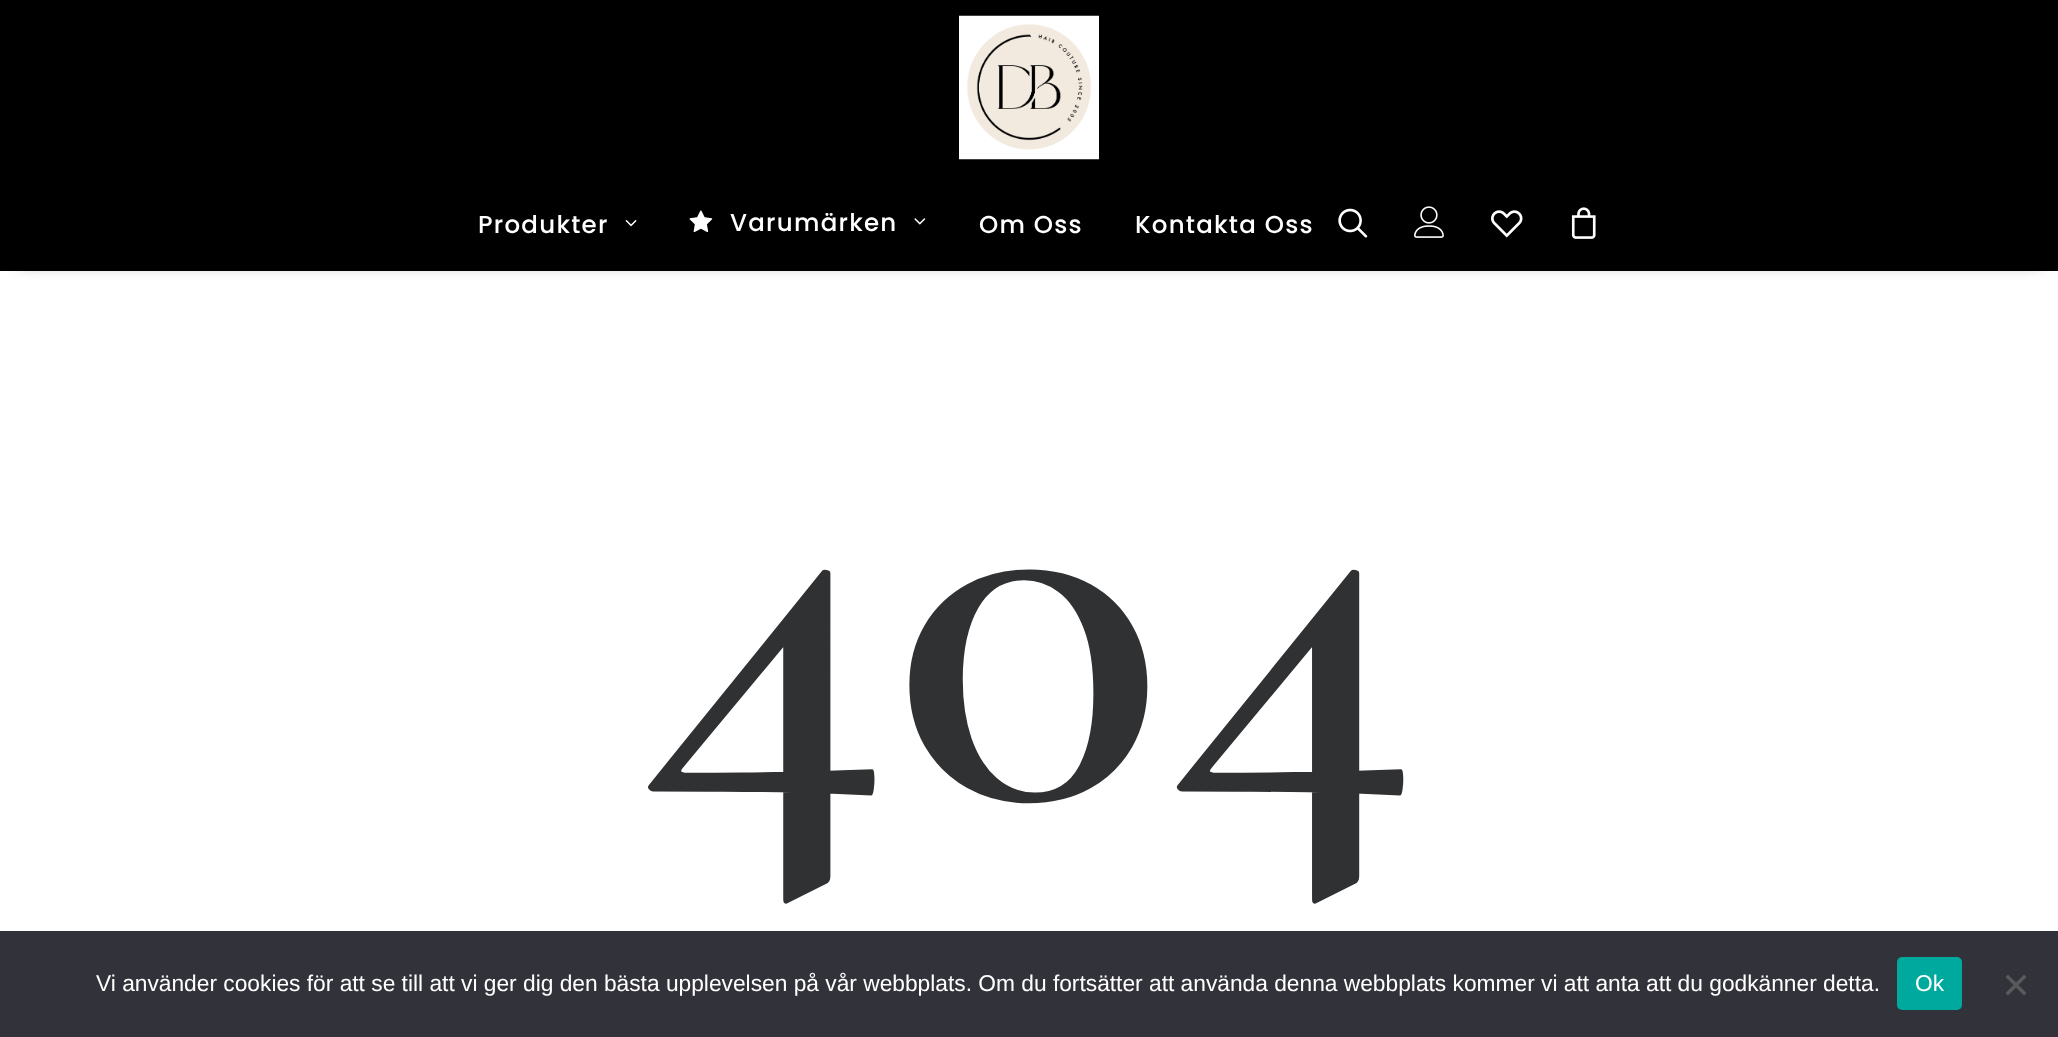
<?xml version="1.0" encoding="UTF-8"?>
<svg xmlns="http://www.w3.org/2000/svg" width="2058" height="1037">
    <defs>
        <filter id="blur1" x="-50%" y="-200%" width="200%" height="500%"><feGaussianBlur stdDeviation="9"/></filter>
    </defs>
    <rect width="100%" height="100%" fill="#FFFFFF"/>
    <rect x="18" y="200" width="2023" height="61" fill="#000000" fill-opacity="0.6" filter="url(#blur1)"/>
    <rect x="0" y="0" width="2058" height="271" fill="#000000"/>
    <image x="959" y="15" width="140" height="145" href="img_01.png"/>
    <text x="478" y="233" font-family="Poppins" font-size="24.5" font-weight="500" letter-spacing="1.25" fill="#FFFFFF">Produkter</text>
    <image x="625" y="220" width="12" height="7" href="img_02.png"/>
    <image x="689" y="210" width="24" height="23" href="img_03.png"/>
    <text x="730" y="231" font-family="Poppins" font-size="24.5" font-weight="500" letter-spacing="1.25" fill="#FFFFFF">Varumärken</text>
    <image x="914" y="218" width="12" height="7" href="img_04.png"/>
    <text x="979" y="233" font-family="Poppins" font-size="24.5" font-weight="500" letter-spacing="1.25" fill="#FFFFFF">Om Oss</text>
    <text x="1135" y="233" font-family="Poppins" font-size="24.5" font-weight="500" letter-spacing="1.25" fill="#FFFFFF">Kontakta Oss</text>
    <image x="1338" y="208" width="30" height="30" href="img_05.png"/>
    <image x="1414" y="206" width="30" height="32" href="img_06.png"/>
    <image x="1491" y="210" width="32" height="28" href="img_07.png"/>
    <image x="1571" y="207" width="25" height="32" href="img_08.png"/>
    <text x="635" y="796" font-family="Cormorant" font-size="568" font-weight="600" fill="#303133">404</text>
    <rect x="0" y="931" width="2058" height="106" fill="#32323A"/>
    <text x="96" y="991" font-family="Liberation Sans" font-size="22.75" fill="#FFFFFF">Vi använder cookies för att se till att vi ger dig den bästa upplevelsen på vår webbplats. Om du fortsätter att använda denna webbplats kommer vi att anta att du godkänner detta.</text>
    <rect x="1897" y="957" width="65" height="53" rx="5" fill="#00A99D"/>
    <text x="1915" y="991" font-family="Liberation Sans" font-size="22.75" fill="#FFFFFF">Ok</text>
    <path d="M 2024 974.5 L 2026.5 977 L 2008 995.5 L 2005.5 993 Z" fill="#59595D"/>
    <path d="M 2005.5 977 L 2008 974.5 L 2026.5 993 L 2024 995.5 Z" fill="#59595D"/>
</svg>
